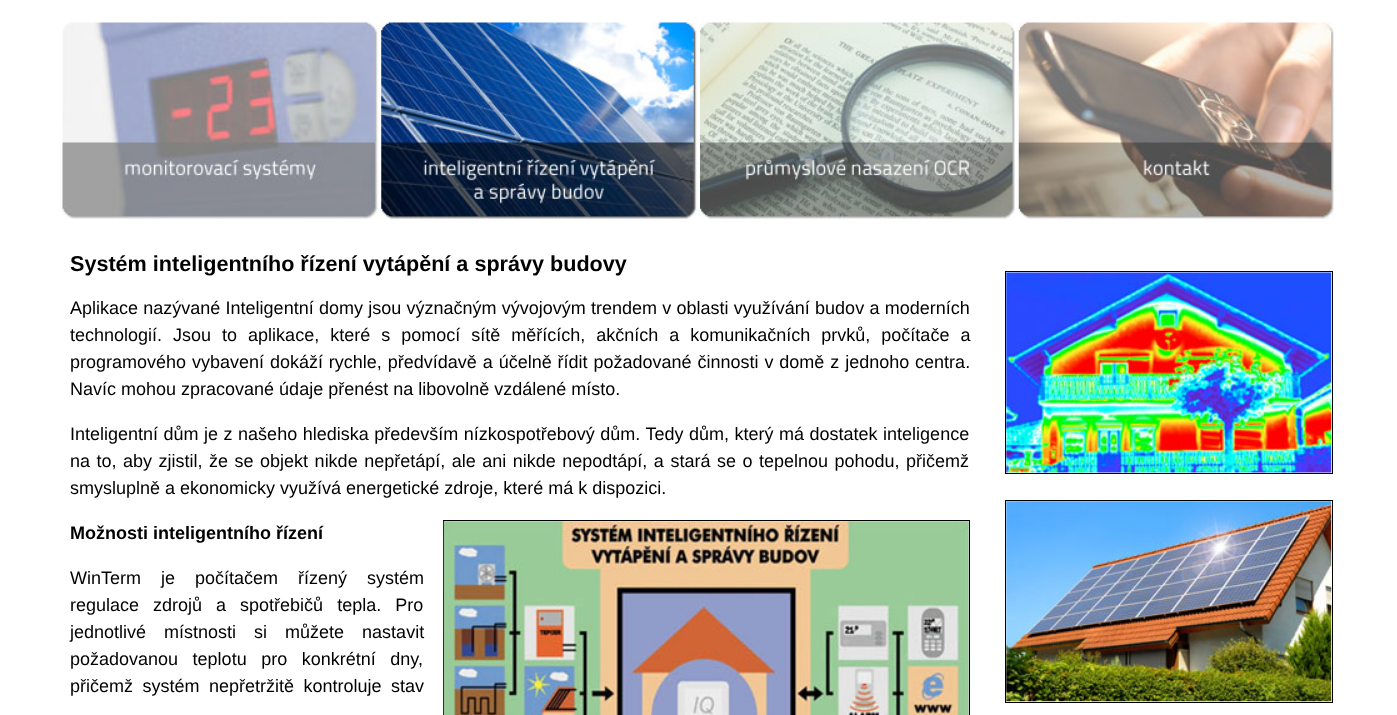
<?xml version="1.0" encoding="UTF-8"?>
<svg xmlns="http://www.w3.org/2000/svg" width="1397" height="715">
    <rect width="100%" height="100%" fill="#FFFFFF"/>
    <image x="62" y="22" width="316" height="197" href="img_01.png"/>
    <image x="381" y="22" width="316" height="197" href="img_02.png"/>
    <image x="700" y="22" width="315" height="197" href="img_03.png"/>
    <image x="1018" y="22" width="316" height="197" href="img_04.png"/>
    <text x="70" y="271" font-family="Liberation Sans" font-size="21.6" font-weight="700" fill="#000000">Systém inteligentního řízení vytápění a správy budovy</text>
    <text font-family="Liberation Sans" font-size="18" fill="#000000">
        <tspan x="70" y="314" word-spacing="0.25">Aplikace nazývané Inteligentní domy jsou význačným vývojovým trendem v oblasti využívání budov a moderních</tspan>
        <tspan x="70" y="341" word-spacing="6">technologií. Jsou to aplikace, které s pomocí sítě měřících, akčních a komunikačních prvků, počítače a</tspan>
        <tspan x="70" y="368" word-spacing="0.9">programového vybavení dokáží rychle, předvídavě a účelně řídit požadované činnosti v domě z jednoho centra.</tspan>
        <tspan x="70" y="395">Navíc mohou zpracované údaje přenést na libovolně vzdálené místo.</tspan>
    </text>
    <text font-family="Liberation Sans" font-size="18" fill="#000000">
        <tspan x="70" y="440" word-spacing="0.5">Inteligentní dům je z našeho hlediska především nízkospotřebový dům. Tedy dům, který má dostatek inteligence</tspan>
        <tspan x="70" y="467" word-spacing="1.5">na to, aby zjistil, že se objekt nikde nepřetápí, ale ani nikde nepodtápí, a stará se o tepelnou pohodu, přičemž</tspan>
        <tspan x="70" y="494">smysluplně a ekonomicky využívá energetické zdroje, které má k dispozici.</tspan>
    </text>
    <text x="70" y="539" font-family="Liberation Sans" font-size="18" font-weight="700" fill="#000000">Možnosti inteligentního řízení</text>
    <rect x="443.5" y="520.5" width="526" height="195" fill="none" stroke="#000000"/>
    <image x="443" y="521" width="526" height="194" href="img_05.png"/>
    <text font-family="Liberation Sans" font-size="18" fill="#000000">
        <tspan x="70" y="584" word-spacing="15">WinTerm je počítačem řízený systém</tspan>
        <tspan x="70" y="611" word-spacing="9">regulace zdrojů a spotřebičů tepla. Pro</tspan>
        <tspan x="70" y="638" word-spacing="13">jednotlivé místnosti si můžete nastavit</tspan>
        <tspan x="70" y="665" word-spacing="9.5">požadovanou teplotu pro konkrétní dny,</tspan>
        <tspan x="70" y="692" word-spacing="4.5">přičemž systém nepřetržitě kontroluje stav</tspan>
    </text>
    <rect x="1005.5" y="271.5" width="327" height="202" fill="none" stroke="#000000"/>
    <image x="1006" y="272" width="326" height="201" href="img_06.png"/>
    <rect x="1005.5" y="500.5" width="327" height="202" fill="none" stroke="#000000"/>
    <image x="1006" y="501" width="326" height="201" href="img_07.png"/>
</svg>
